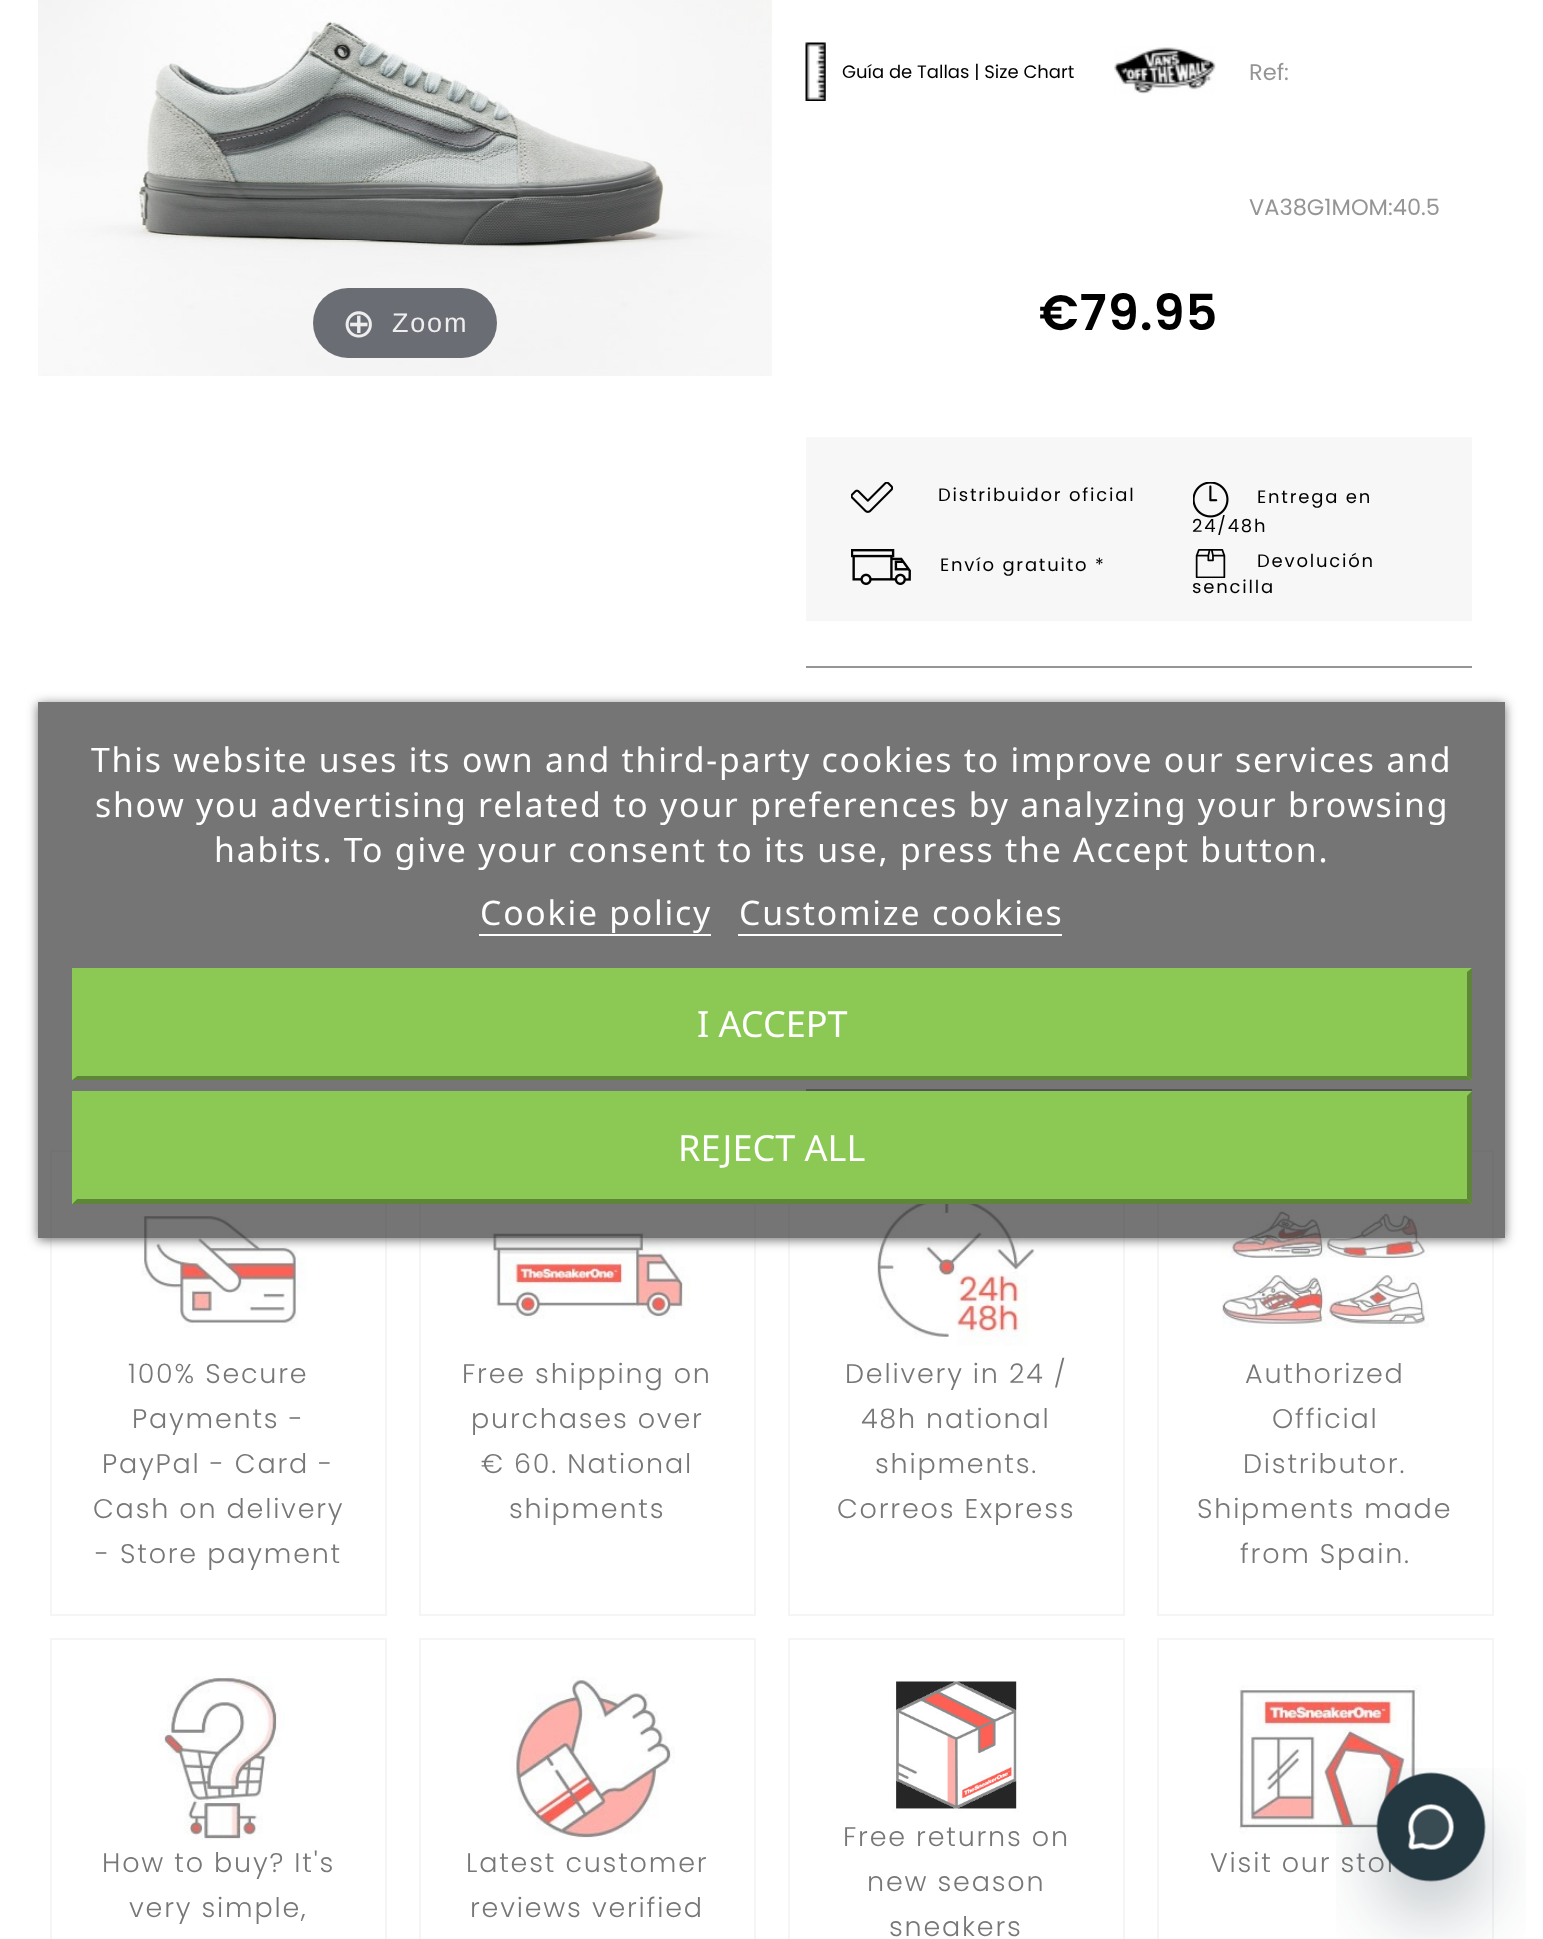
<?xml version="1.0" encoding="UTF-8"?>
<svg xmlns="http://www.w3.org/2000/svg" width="1543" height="1939">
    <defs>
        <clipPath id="clip1"><path d="M 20 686 H 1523 V 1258 H 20 Z M 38 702 H 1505 V 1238 H 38 Z" clip-rule="evenodd"/></clipPath>
        <filter id="blur1" x="-50%" y="-200%" width="200%" height="500%"><feGaussianBlur stdDeviation="5.5"/></filter>
    </defs>
    <rect width="100%" height="100%" fill="#FFFFFF"/>
    <image x="38" y="0" width="734" height="376" href="img_01.png"/>
    <rect x="313" y="288" width="184" height="70" rx="35" fill="#31333D" fill-opacity="0.7"/>
    <text x="342" y="337" font-family="DejaVu Sans" font-size="40" letter-spacing="1.8" fill="#EEEEEE">⊕</text>
    <text x="392" y="332" font-family="Liberation Sans" font-size="27" letter-spacing="1.8" fill="#EEEEEE">Zoom</text>
    <image x="805" y="42" width="21" height="59" href="img_02.png"/>
    <text x="842" y="78" font-family="Poppins" font-size="18" fill="#000000">Guía de Tallas | Size Chart</text>
    <image x="1114" y="47" width="102" height="47" href="img_03.png"/>
    <text x="1249" y="80" font-family="Poppins" font-size="22.5" fill="#959595">Ref:</text>
    <text x="1249" y="215" font-family="Poppins" font-size="22.5" fill="#959595">VA38G1MOM:40.5</text>
    <text x="1039" y="330" font-family="Poppins" font-size="49.5" font-weight="600" letter-spacing="1" fill="#000000">€79.95</text>
    <rect x="806" y="437" width="666" height="184" fill="#F7F7F7"/>
    <image x="851" y="482" width="42" height="31" href="img_04.png"/>
    <text x="938" y="501" font-family="Poppins" font-size="18" letter-spacing="1.8" fill="#000000">Distribuidor oficial</text>
    <image x="851" y="549" width="60" height="36" href="img_05.png"/>
    <text x="940" y="571" font-family="Poppins" font-size="18" letter-spacing="1.8" fill="#000000">Envío gratuito *</text>
    <image x="1193" y="482" width="36" height="36" href="img_06.png"/>
    <text x="1257" y="503" font-family="Poppins" font-size="18" letter-spacing="1.8" fill="#000000">Entrega en</text>
    <text x="1192" y="532" font-family="Poppins" font-size="18" letter-spacing="1.8" fill="#000000">24/48h</text>
    <image x="1195" y="549" width="31" height="29" href="img_07.png"/>
    <text x="1257" y="567" font-family="Poppins" font-size="18" letter-spacing="1.8" fill="#000000">Devolución</text>
    <text x="1192" y="593" font-family="Poppins" font-size="18" letter-spacing="1.8" fill="#000000">sencilla</text>
    <rect x="806" y="666" width="666" height="2" fill="#959595"/>
    <rect x="806" y="1089" width="666" height="2" fill="#959595"/>
    <rect x="51" y="1151" width="335" height="464" fill="none" stroke="#F5F5F5" stroke-width="2"/>
    <image x="141" y="1214" width="166" height="114" href="img_08.png"/>
    <text x="128" y="1383" font-family="Poppins" font-size="27" font-weight="300" letter-spacing="1.8" fill="#777777">100% Secure</text>
    <text x="132" y="1428" font-family="Poppins" font-size="27" font-weight="300" letter-spacing="1.8" fill="#777777">Payments -</text>
    <text x="102" y="1473" font-family="Poppins" font-size="27" font-weight="300" letter-spacing="1.8" fill="#777777">PayPal - Card -</text>
    <text x="93" y="1518" font-family="Poppins" font-size="27" font-weight="300" letter-spacing="1.8" fill="#777777">Cash on delivery</text>
    <text x="95" y="1563" font-family="Poppins" font-size="27" font-weight="300" letter-spacing="1.8" fill="#777777">- Store payment</text>
    <rect x="420" y="1151" width="335" height="464" fill="none" stroke="#F5F5F5" stroke-width="2"/>
    <image x="492" y="1232" width="198" height="87" href="img_09.png"/>
    <text x="462" y="1383" font-family="Poppins" font-size="27" font-weight="300" letter-spacing="1.8" fill="#777777">Free shipping on</text>
    <text x="471" y="1428" font-family="Poppins" font-size="27" font-weight="300" letter-spacing="1.8" fill="#777777">purchases over</text>
    <text x="481" y="1473" font-family="Poppins" font-size="27" font-weight="300" letter-spacing="1.8" fill="#777777">€ 60. National</text>
    <text x="509" y="1518" font-family="Poppins" font-size="27" font-weight="300" letter-spacing="1.8" fill="#777777">shipments</text>
    <rect x="789" y="1151" width="335" height="464" fill="none" stroke="#F5F5F5" stroke-width="2"/>
    <image x="877" y="1204" width="159" height="142" href="img_10.png"/>
    <text x="845" y="1383" font-family="Poppins" font-size="27" font-weight="300" letter-spacing="1.8" fill="#777777">Delivery in 24 /</text>
    <text x="861" y="1428" font-family="Poppins" font-size="27" font-weight="300" letter-spacing="1.8" fill="#777777">48h national</text>
    <text x="875" y="1473" font-family="Poppins" font-size="27" font-weight="300" letter-spacing="1.8" fill="#777777">shipments.</text>
    <text x="837" y="1518" font-family="Poppins" font-size="27" font-weight="300" letter-spacing="1.8" fill="#777777">Correos Express</text>
    <rect x="1158" y="1151" width="335" height="464" fill="none" stroke="#F5F5F5" stroke-width="2"/>
    <image x="1222" y="1206" width="207" height="122" href="img_11.png"/>
    <text x="1245" y="1383" font-family="Poppins" font-size="27" font-weight="300" letter-spacing="1.8" fill="#777777">Authorized</text>
    <text x="1272" y="1428" font-family="Poppins" font-size="27" font-weight="300" letter-spacing="1.8" fill="#777777">Official</text>
    <text x="1243" y="1473" font-family="Poppins" font-size="27" font-weight="300" letter-spacing="1.8" fill="#777777">Distributor.</text>
    <text x="1197" y="1518" font-family="Poppins" font-size="27" font-weight="300" letter-spacing="1.8" fill="#777777">Shipments made</text>
    <text x="1240" y="1563" font-family="Poppins" font-size="27" font-weight="300" letter-spacing="1.8" fill="#777777">from Spain.</text>
    <rect x="51" y="1639" width="335" height="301" fill="none" stroke="#F5F5F5" stroke-width="2"/>
    <image x="159" y="1676" width="126" height="164" href="img_12.png"/>
    <text x="102" y="1872" font-family="Poppins" font-size="27" font-weight="300" letter-spacing="1.8" fill="#777777">How to buy? It's</text>
    <text x="129" y="1917" font-family="Poppins" font-size="27" font-weight="300" letter-spacing="1.8" fill="#777777">very simple,</text>
    <rect x="420" y="1639" width="335" height="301" fill="none" stroke="#F5F5F5" stroke-width="2"/>
    <image x="510" y="1676" width="165" height="164" href="img_13.png"/>
    <text x="466" y="1872" font-family="Poppins" font-size="27" font-weight="300" letter-spacing="1.8" fill="#777777">Latest customer</text>
    <text x="470" y="1917" font-family="Poppins" font-size="27" font-weight="300" letter-spacing="1.8" fill="#777777">reviews verified</text>
    <rect x="789" y="1639" width="335" height="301" fill="none" stroke="#F5F5F5" stroke-width="2"/>
    <image x="892" y="1681" width="127" height="132" href="img_14.png"/>
    <text x="843" y="1846" font-family="Poppins" font-size="27" font-weight="300" letter-spacing="1.8" fill="#777777">Free returns on</text>
    <text x="867" y="1891" font-family="Poppins" font-size="27" font-weight="300" letter-spacing="1.8" fill="#777777">new season</text>
    <text x="889" y="1936" font-family="Poppins" font-size="27" font-weight="300" letter-spacing="1.8" fill="#777777">sneakers</text>
    <rect x="1158" y="1639" width="335" height="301" fill="none" stroke="#F5F5F5" stroke-width="2"/>
    <image x="1239" y="1685" width="183" height="149" href="img_15.png"/>
    <text x="1210" y="1872" font-family="Poppins" font-size="27" font-weight="300" letter-spacing="1.8" fill="#777777">Visit our stor</text>
    <g clip-path="url(#clip1)">
        <rect x="38" y="704" width="1467" height="536" fill="#707070" filter="url(#blur1)"/>
    </g>
    <rect x="38" y="702" width="1467" height="536" fill="#3B3B3B" fill-opacity="0.7"/>
    <text x="91" y="772" font-family="Noto Sans" font-size="33.75" letter-spacing="1.8" fill="#FFFFFF">This website uses its own and third-party cookies to improve our services and</text>
    <text x="95" y="817" font-family="Noto Sans" font-size="33.75" letter-spacing="1.8" fill="#FFFFFF">show you advertising related to your preferences by analyzing your browsing</text>
    <text x="214" y="862" font-family="Noto Sans" font-size="33.75" letter-spacing="1.8" fill="#FFFFFF">habits. To give your consent to its use, press the Accept button.</text>
    <text x="480" y="925" font-family="Noto Sans" font-size="33.75" letter-spacing="1.8" fill="#FFFFFF">Cookie policy</text>
    <rect x="479" y="934" width="232" height="2" fill="#FFFFFF"/>
    <text x="739" y="925" font-family="Noto Sans" font-size="33.75" letter-spacing="1.8" fill="#FFFFFF">Customize cookies</text>
    <rect x="738" y="934" width="324" height="2" fill="#FFFFFF"/>
    <rect x="72" y="968" width="1400" height="112" fill="#8BC954"/>
    <path d="M 1472 968 V 1080 L 1467 1076 V 972 Z" fill="#5D8638"/>
    <path d="M 1472 1080 H 72 L 77 1076 H 1467 Z" fill="#5D8638"/>
    <path d="M 72 1080 V 968 L 77 972 V 1076 Z" fill="#8BC954"/>
    <text x="697" y="1037" font-family="Noto Sans" font-size="36" fill="#FFFFFF">I ACCEPT</text>
    <rect x="72" y="1091" width="1400" height="113" fill="#8BC954"/>
    <path d="M 1472 1091 V 1204 L 1467 1199 V 1096 Z" fill="#5D8638"/>
    <path d="M 1472 1204 H 72 L 77 1199 H 1467 Z" fill="#5D8638"/>
    <path d="M 72 1204 V 1091 L 77 1096 V 1199 Z" fill="#8BC954"/>
    <text x="678" y="1161" font-family="Noto Sans" font-size="36" fill="#FFFFFF">REJECT ALL</text>
    <image x="1336" y="1768" width="190" height="171" href="img_16.png"/>
</svg>
